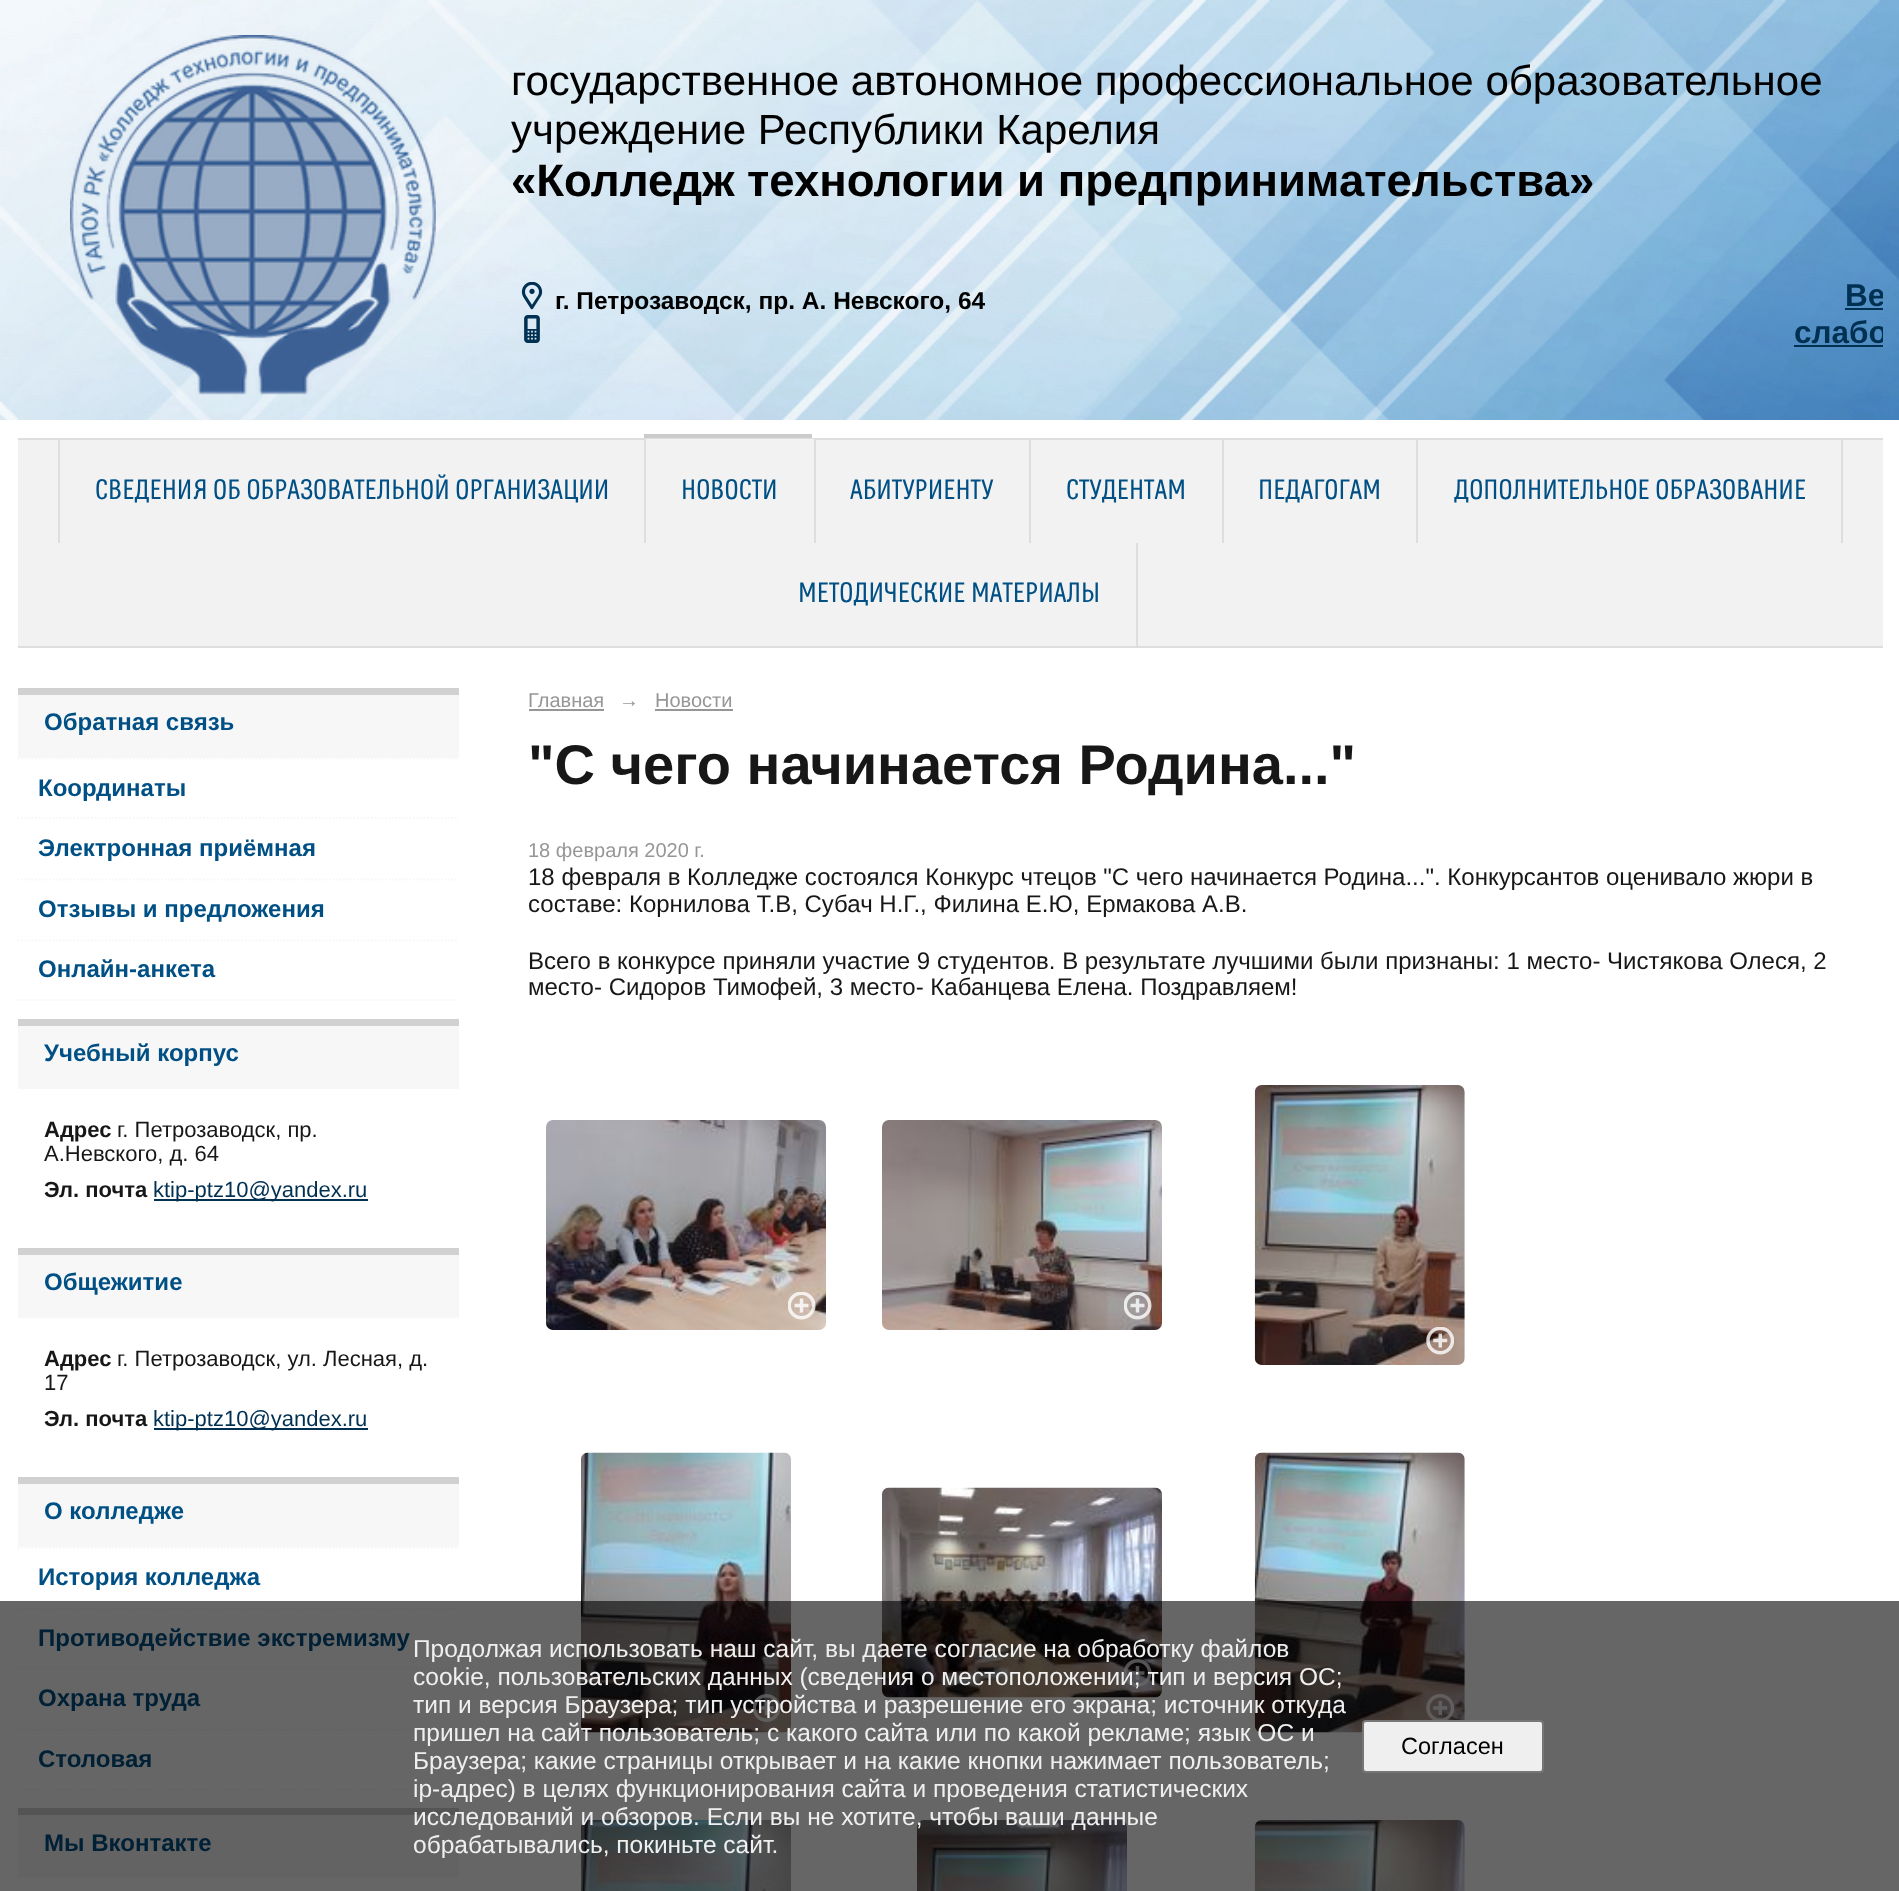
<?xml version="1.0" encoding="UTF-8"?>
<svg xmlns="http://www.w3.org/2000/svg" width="1899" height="1891">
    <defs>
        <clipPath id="clip1"><rect x="18" y="35" width="1865" height="385"/></clipPath>
        <clipPath id="clip2"><rect x="529" y="865" width="1319" height="168"/></clipPath>
    </defs>
    <rect width="100%" height="100%" fill="#FFFFFF"/>
    <image x="0" y="0" width="1899" height="420" href="img_01.png"/>
    <image x="70" y="35" width="366" height="360" href="img_02.png"/>
    <text font-family="Liberation Sans" font-size="42" fill="#000000">
        <tspan x="511" y="95">государственное автономное профессиональное образовательное</tspan>
        <tspan x="511" y="144">учреждение Республики Карелия</tspan>
    </text>
    <text x="511" y="196" font-family="Liberation Sans" font-size="45.5" font-weight="700" fill="#000000">«Колледж технологии и предпринимательства»</text>
    <image x="521" y="282" width="22" height="28" href="img_03.png"/>
    <text x="555" y="309" font-family="Liberation Sans" font-size="24.5" font-weight="700" fill="#000000">г. Петрозаводск, пр. А. Невского, 64</text>
    <image x="524" y="315" width="16" height="28" href="img_04.png"/>
    <g clip-path="url(#clip1)">
        <text x="1845" y="306" font-family="Liberation Sans" font-size="31.5" font-weight="700" fill="#003052">Ве</text>
    </g>
    <rect x="1845" y="308" width="38" height="2" fill="#003052"/>
    <g clip-path="url(#clip1)">
        <text x="1794" y="343" font-family="Liberation Sans" font-size="31.5" font-weight="700" fill="#003052">слабо</text>
    </g>
    <rect x="1794" y="345" width="89" height="2" fill="#003052"/>
    <rect x="18" y="440" width="1865" height="206" fill="#F2F2F2"/>
    <rect x="18" y="438" width="1865" height="2" fill="#DEDEDE"/>
    <rect x="18" y="646" width="1865" height="2" fill="#DEDEDE"/>
    <rect x="644" y="439" width="2" height="104" fill="#DEDEDE"/>
    <rect x="58" y="439" width="2" height="104" fill="#DEDEDE"/>
    <text x="95" y="499" font-family="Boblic" font-size="28" fill="#005085">СВЕДЕНИЯ ОБ ОБРАЗОВАТЕЛЬНОЙ ОРГАНИЗАЦИИ</text>
    <rect x="646" y="439" width="168" height="1" fill="#F2F2F2"/>
    <rect x="814" y="439" width="2" height="104" fill="#DEDEDE"/>
    <rect x="644" y="434" width="168" height="4" fill="#CCCCCC"/>
    <text x="681" y="499" font-family="Boblic" font-size="28" fill="#005085">НОВОСТИ</text>
    <rect x="1029" y="439" width="2" height="104" fill="#DEDEDE"/>
    <text x="850" y="499" font-family="Boblic" font-size="28" fill="#005085">АБИТУРИЕНТУ</text>
    <rect x="1222" y="439" width="2" height="104" fill="#DEDEDE"/>
    <text x="1066" y="499" font-family="Boblic" font-size="28" fill="#005085">СТУДЕНТАМ</text>
    <rect x="1416" y="439" width="2" height="104" fill="#DEDEDE"/>
    <text x="1258" y="499" font-family="Boblic" font-size="28" fill="#005085">ПЕДАГОГАМ</text>
    <rect x="1841" y="439" width="2" height="104" fill="#DEDEDE"/>
    <text x="1454" y="499" font-family="Boblic" font-size="28" fill="#005085">ДОПОЛНИТЕЛЬНОЕ ОБРАЗОВАНИЕ</text>
    <rect x="1136" y="543" width="2" height="103" fill="#DEDEDE"/>
    <text x="798" y="602" font-family="Boblic" font-size="28" fill="#005085">МЕТОДИЧЕСКИЕ МАТЕРИАЛЫ</text>
    <rect x="18" y="695" width="441" height="63" fill="#F7F7F7"/>
    <rect x="18" y="688" width="441" height="7" fill="#D1D1D1"/>
    <text x="44" y="730" font-family="Liberation Sans" font-size="24.02" font-weight="700" fill="#005085">Обратная связь</text>
    <path d="M 17.5 1000 H 458.5" fill="none" stroke="#F7F7F7" stroke-width="1.8" stroke-dasharray="1.75 1.75"/>
    <path d="M 17.5 758.5 H 458.5" fill="none" stroke="#F7F7F7" stroke-width="1.8" stroke-dasharray="1.75 1.75"/>
    <text x="38" y="796" font-family="Liberation Sans" font-size="24.02" font-weight="700" fill="#005085">Координаты</text>
    <path d="M 17.5 818 H 458.5" fill="none" stroke="#F7F7F7" stroke-width="1.8" stroke-dasharray="1.75 1.75"/>
    <text x="38" y="856" font-family="Liberation Sans" font-size="24.02" font-weight="700" fill="#005085">Электронная приёмная</text>
    <path d="M 17.5 879.5 H 458.5" fill="none" stroke="#F7F7F7" stroke-width="1.8" stroke-dasharray="1.75 1.75"/>
    <text x="38" y="917" font-family="Liberation Sans" font-size="24.02" font-weight="700" fill="#005085">Отзывы и предложения</text>
    <path d="M 17.5 940.5 H 458.5" fill="none" stroke="#F7F7F7" stroke-width="1.8" stroke-dasharray="1.75 1.75"/>
    <text x="38" y="977" font-family="Liberation Sans" font-size="24.02" font-weight="700" fill="#005085">Онлайн-анкета</text>
    <rect x="18" y="1026" width="441" height="63" fill="#F7F7F7"/>
    <rect x="18" y="1019" width="441" height="7" fill="#D1D1D1"/>
    <text x="44" y="1061" font-family="Liberation Sans" font-size="24.02" font-weight="700" fill="#005085">Учебный корпус</text>
    <text x="44" y="1137" font-family="Liberation Sans" font-size="22" font-weight="700" fill="#171717">Адрес</text>
    <text x="117" y="1137" font-family="Liberation Sans" font-size="22" fill="#171717">г. Петрозаводск, пр.</text>
    <text x="44" y="1161" font-family="Liberation Sans" font-size="22" fill="#171717">А.Невского, д. 64</text>
    <text x="44" y="1197" font-family="Liberation Sans" font-size="22" font-weight="700" fill="#171717">Эл. почта</text>
    <rect x="154" y="1199" width="214" height="2" fill="#003052"/>
    <text x="153" y="1197" font-family="Liberation Sans" font-size="22" fill="#003052">ktip-ptz10@yandex.ru</text>
    <rect x="18" y="1255" width="441" height="63" fill="#F7F7F7"/>
    <rect x="18" y="1248" width="441" height="7" fill="#D1D1D1"/>
    <text x="44" y="1290" font-family="Liberation Sans" font-size="24.02" font-weight="700" fill="#005085">Общежитие</text>
    <text x="44" y="1366" font-family="Liberation Sans" font-size="22" font-weight="700" fill="#171717">Адрес</text>
    <text x="117" y="1366" font-family="Liberation Sans" font-size="22" fill="#171717">г. Петрозаводск, ул. Лесная, д.</text>
    <text x="44" y="1390" font-family="Liberation Sans" font-size="22" fill="#171717">17</text>
    <text x="44" y="1426" font-family="Liberation Sans" font-size="22" font-weight="700" fill="#171717">Эл. почта</text>
    <rect x="154" y="1428" width="214" height="2" fill="#003052"/>
    <text x="153" y="1426" font-family="Liberation Sans" font-size="22" fill="#003052">ktip-ptz10@yandex.ru</text>
    <rect x="18" y="1484" width="441" height="63" fill="#F7F7F7"/>
    <rect x="18" y="1477" width="441" height="7" fill="#D1D1D1"/>
    <text x="44" y="1519" font-family="Liberation Sans" font-size="24.02" font-weight="700" fill="#005085">О колледже</text>
    <path d="M 17.5 1789.5 H 458.5" fill="none" stroke="#F7F7F7" stroke-width="1.8" stroke-dasharray="1.75 1.75"/>
    <path d="M 17.5 1548 H 458.5" fill="none" stroke="#F7F7F7" stroke-width="1.8" stroke-dasharray="1.75 1.75"/>
    <text x="38" y="1585" font-family="Liberation Sans" font-size="24.02" font-weight="700" fill="#005085">История колледжа</text>
    <path d="M 17.5 1609 H 458.5" fill="none" stroke="#F7F7F7" stroke-width="1.8" stroke-dasharray="1.75 1.75"/>
    <text x="38" y="1646" font-family="Liberation Sans" font-size="24.02" font-weight="700" fill="#005085">Противодействие экстремизму</text>
    <path d="M 17.5 1668.5 H 458.5" fill="none" stroke="#F7F7F7" stroke-width="1.8" stroke-dasharray="1.75 1.75"/>
    <text x="38" y="1706" font-family="Liberation Sans" font-size="24.02" font-weight="700" fill="#005085">Охрана труда</text>
    <path d="M 17.5 1730 H 458.5" fill="none" stroke="#F7F7F7" stroke-width="1.8" stroke-dasharray="1.75 1.75"/>
    <text x="38" y="1767" font-family="Liberation Sans" font-size="24.02" font-weight="700" fill="#005085">Столовая</text>
    <rect x="18" y="1815" width="441" height="63" fill="#F7F7F7"/>
    <rect x="18" y="1808" width="441" height="7" fill="#D1D1D1"/>
    <text x="44" y="1851" font-family="Liberation Sans" font-size="24.02" font-weight="700" fill="#005085">Мы Вконтакте</text>
    <text x="528" y="707" font-family="Liberation Sans" font-size="20" fill="#969696">Главная</text>
    <rect x="529" y="709" width="75" height="2" fill="#969696"/>
    <text x="619" y="707" font-family="Liberation Sans" font-size="20" font-style="italic" fill="#969696">→</text>
    <text x="655" y="707" font-family="Liberation Sans" font-size="20" fill="#969696">Новости</text>
    <rect x="655" y="709" width="78" height="2" fill="#969696"/>
    <text x="528" y="784" font-family="Liberation Sans" font-size="56" font-weight="700" fill="#171717">"С чего начинается Родина..."</text>
    <text x="528" y="857" font-family="Liberation Sans" font-size="20" fill="#969696">18 февраля 2020 г.</text>
    <text x="528" y="885" font-family="Liberation Sans" font-size="24.02" fill="#171717">18 февраля в Колледже состоялся Конкурс чтецов "С чего начинается Родина...". Конкурсантов оценивало жюри в</text>
    <g clip-path="url(#clip2)">
        <text x="528" y="912" font-family="Liberation Sans" font-size="24.02" fill="#171717">составе: Корнилова Т.В, Субач Н.Г., Филина Е.Ю, Ермакова А.В.</text>
    </g>
    <text font-family="Liberation Sans" font-size="24.02" fill="#171717">
        <tspan x="528" y="969">Всего в конкурсе приняли участие 9 студентов. В результате лучшими были признаны: 1 место- Чистякова Олеся, 2</tspan>
        <tspan x="528" y="995">место- Сидоров Тимофей, 3 место- Кабанцева Елена. Поздравляем!</tspan>
    </text>
    <image x="546" y="1120" width="280" height="210" href="img_05.png"/>
    <image x="788" y="1292" width="28" height="28" href="img_06.png"/>
    <image x="882" y="1120" width="280" height="210" href="img_07.png"/>
    <image x="1124" y="1292" width="28" height="28" href="img_08.png"/>
    <image x="1254" y="1085" width="211" height="280" href="img_09.png"/>
    <image x="1426" y="1327" width="28" height="28" href="img_10.png"/>
    <image x="581" y="1452" width="210" height="281" href="img_11.png"/>
    <image x="753" y="1694" width="28" height="28" href="img_12.png"/>
    <image x="882" y="1487" width="280" height="211" href="img_13.png"/>
    <image x="1124" y="1659" width="28" height="28" href="img_14.png"/>
    <image x="1254" y="1452" width="211" height="281" href="img_15.png"/>
    <image x="1426" y="1694" width="28" height="26" href="img_16.png"/>
    <image x="581" y="1820" width="210" height="71" href="img_17.png"/>
    <image x="917" y="1820" width="210" height="71" href="img_18.png"/>
    <image x="1254" y="1820" width="211" height="71" href="img_19.png"/>
    <rect x="0" y="1601" width="1899" height="290" fill="#000000" fill-opacity="0.6"/>
    <text font-family="Liberation Sans" font-size="24.5" fill="#EFEFEF">
        <tspan x="413" y="1657">Продолжая использовать наш сайт, вы даете согласие на обработку файлов</tspan>
        <tspan x="413" y="1685">cookie, пользовательских данных (сведения о местоположении; тип и версия ОС;</tspan>
        <tspan x="413" y="1713">тип и версия Браузера; тип устройства и разрешение его экрана; источник откуда</tspan>
        <tspan x="413" y="1741">пришел на сайт пользователь; с какого сайта или по какой рекламе; язык ОС и</tspan>
        <tspan x="413" y="1769">Браузера; какие страницы открывает и на какие кнопки нажимает пользователь;</tspan>
        <tspan x="413" y="1797">ip-адрес) в целях функционирования сайта и проведения статистических</tspan>
        <tspan x="413" y="1825">исследований и обзоров. Если вы не хотите, чтобы ваши данные</tspan>
        <tspan x="413" y="1853">обрабатывались, покиньте сайт.</tspan>
    </text>
    <rect x="1363" y="1721" width="180" height="51" rx="3" fill="#EFEFEF" stroke="#767676" stroke-width="2"/>
    <text x="1401" y="1754" font-family="Liberation Sans" font-size="23.5" fill="#000000">Согласен</text>
</svg>
